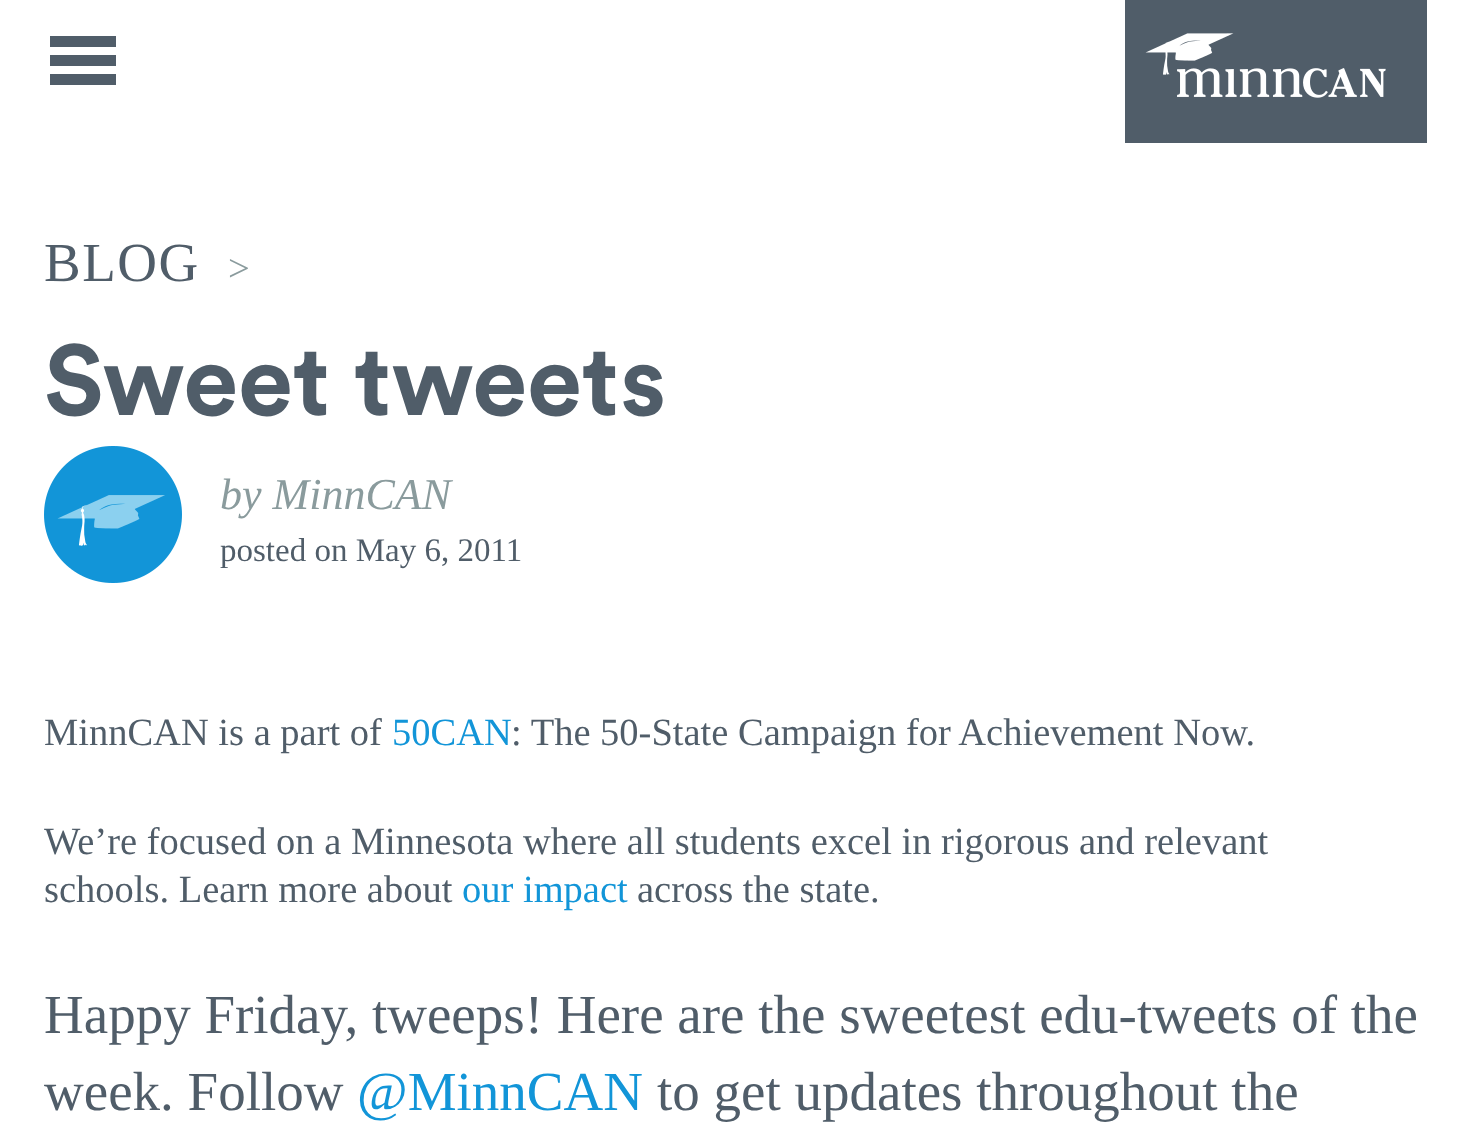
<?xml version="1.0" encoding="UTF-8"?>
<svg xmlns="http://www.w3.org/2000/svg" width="1469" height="1137">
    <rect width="100%" height="100%" fill="#FFFFFF"/>
    <rect x="50" y="36" width="66" height="11" fill="#505D69"/>
    <rect x="50" y="55" width="66" height="11" fill="#505D69"/>
    <rect x="50" y="74" width="66" height="11" fill="#505D69"/>
    <rect x="1125" y="0" width="302" height="143" fill="#505D69"/>
    <image x="1145" y="33" width="241" height="65" href="img_01.png"/>
    <text x="44" y="281" font-family="Liberation Serif" font-size="55" letter-spacing="1.5" fill="#505D69">BLOG</text>
    <text x="228" y="281" font-family="Liberation Serif" font-size="38.5" letter-spacing="8" fill="#8A9B9D">&gt;</text>
    <text x="44" y="415" font-family="Circular" font-size="99" font-weight="700" fill="#505D69">Sweet tweets</text>
    <image x="44" y="446" width="138" height="137" href="img_02.png"/>
    <text x="220" y="509" font-family="Liberation Serif" font-size="44" font-style="italic" fill="#8A9B9D">by MinnCAN</text>
    <text x="220" y="561" font-family="Liberation Serif" font-size="33" fill="#505D69">posted on May 6, 2011</text>
    <text x="44" y="745" font-family="Liberation Serif" font-size="38.5" fill="#505D69">MinnCAN is a part of</text>
    <text x="392" y="745" font-family="Liberation Serif" font-size="38.5" fill="#1295D8">50CAN</text>
    <text x="511" y="745" font-family="Liberation Serif" font-size="38.5" fill="#505D69">: The 50-State Campaign for Achievement Now.</text>
    <text font-family="Liberation Serif" font-size="38.5" fill="#505D69">
        <tspan x="44" y="854">We’re focused on a Minnesota where all students excel in rigorous and relevant</tspan>
        <tspan x="44" y="902">schools. Learn more about</tspan>
    </text>
    <text x="462" y="902" font-family="Liberation Serif" font-size="38.5" fill="#1295D8">our impact</text>
    <text x="637" y="902" font-family="Liberation Serif" font-size="38.5" fill="#505D69">across the state.</text>
    <text font-family="Liberation Serif" font-size="55" fill="#505D69">
        <tspan x="44" y="1033">Happy Friday, tweeps! Here are the sweetest edu-tweets of the</tspan>
        <tspan x="44" y="1110">week. Follow</tspan>
    </text>
    <text x="357" y="1110" font-family="Liberation Serif" font-size="55" fill="#1295D8">@MinnCAN</text>
    <text x="657" y="1110" font-family="Liberation Serif" font-size="55" fill="#505D69">to get updates throughout the</text>
</svg>
